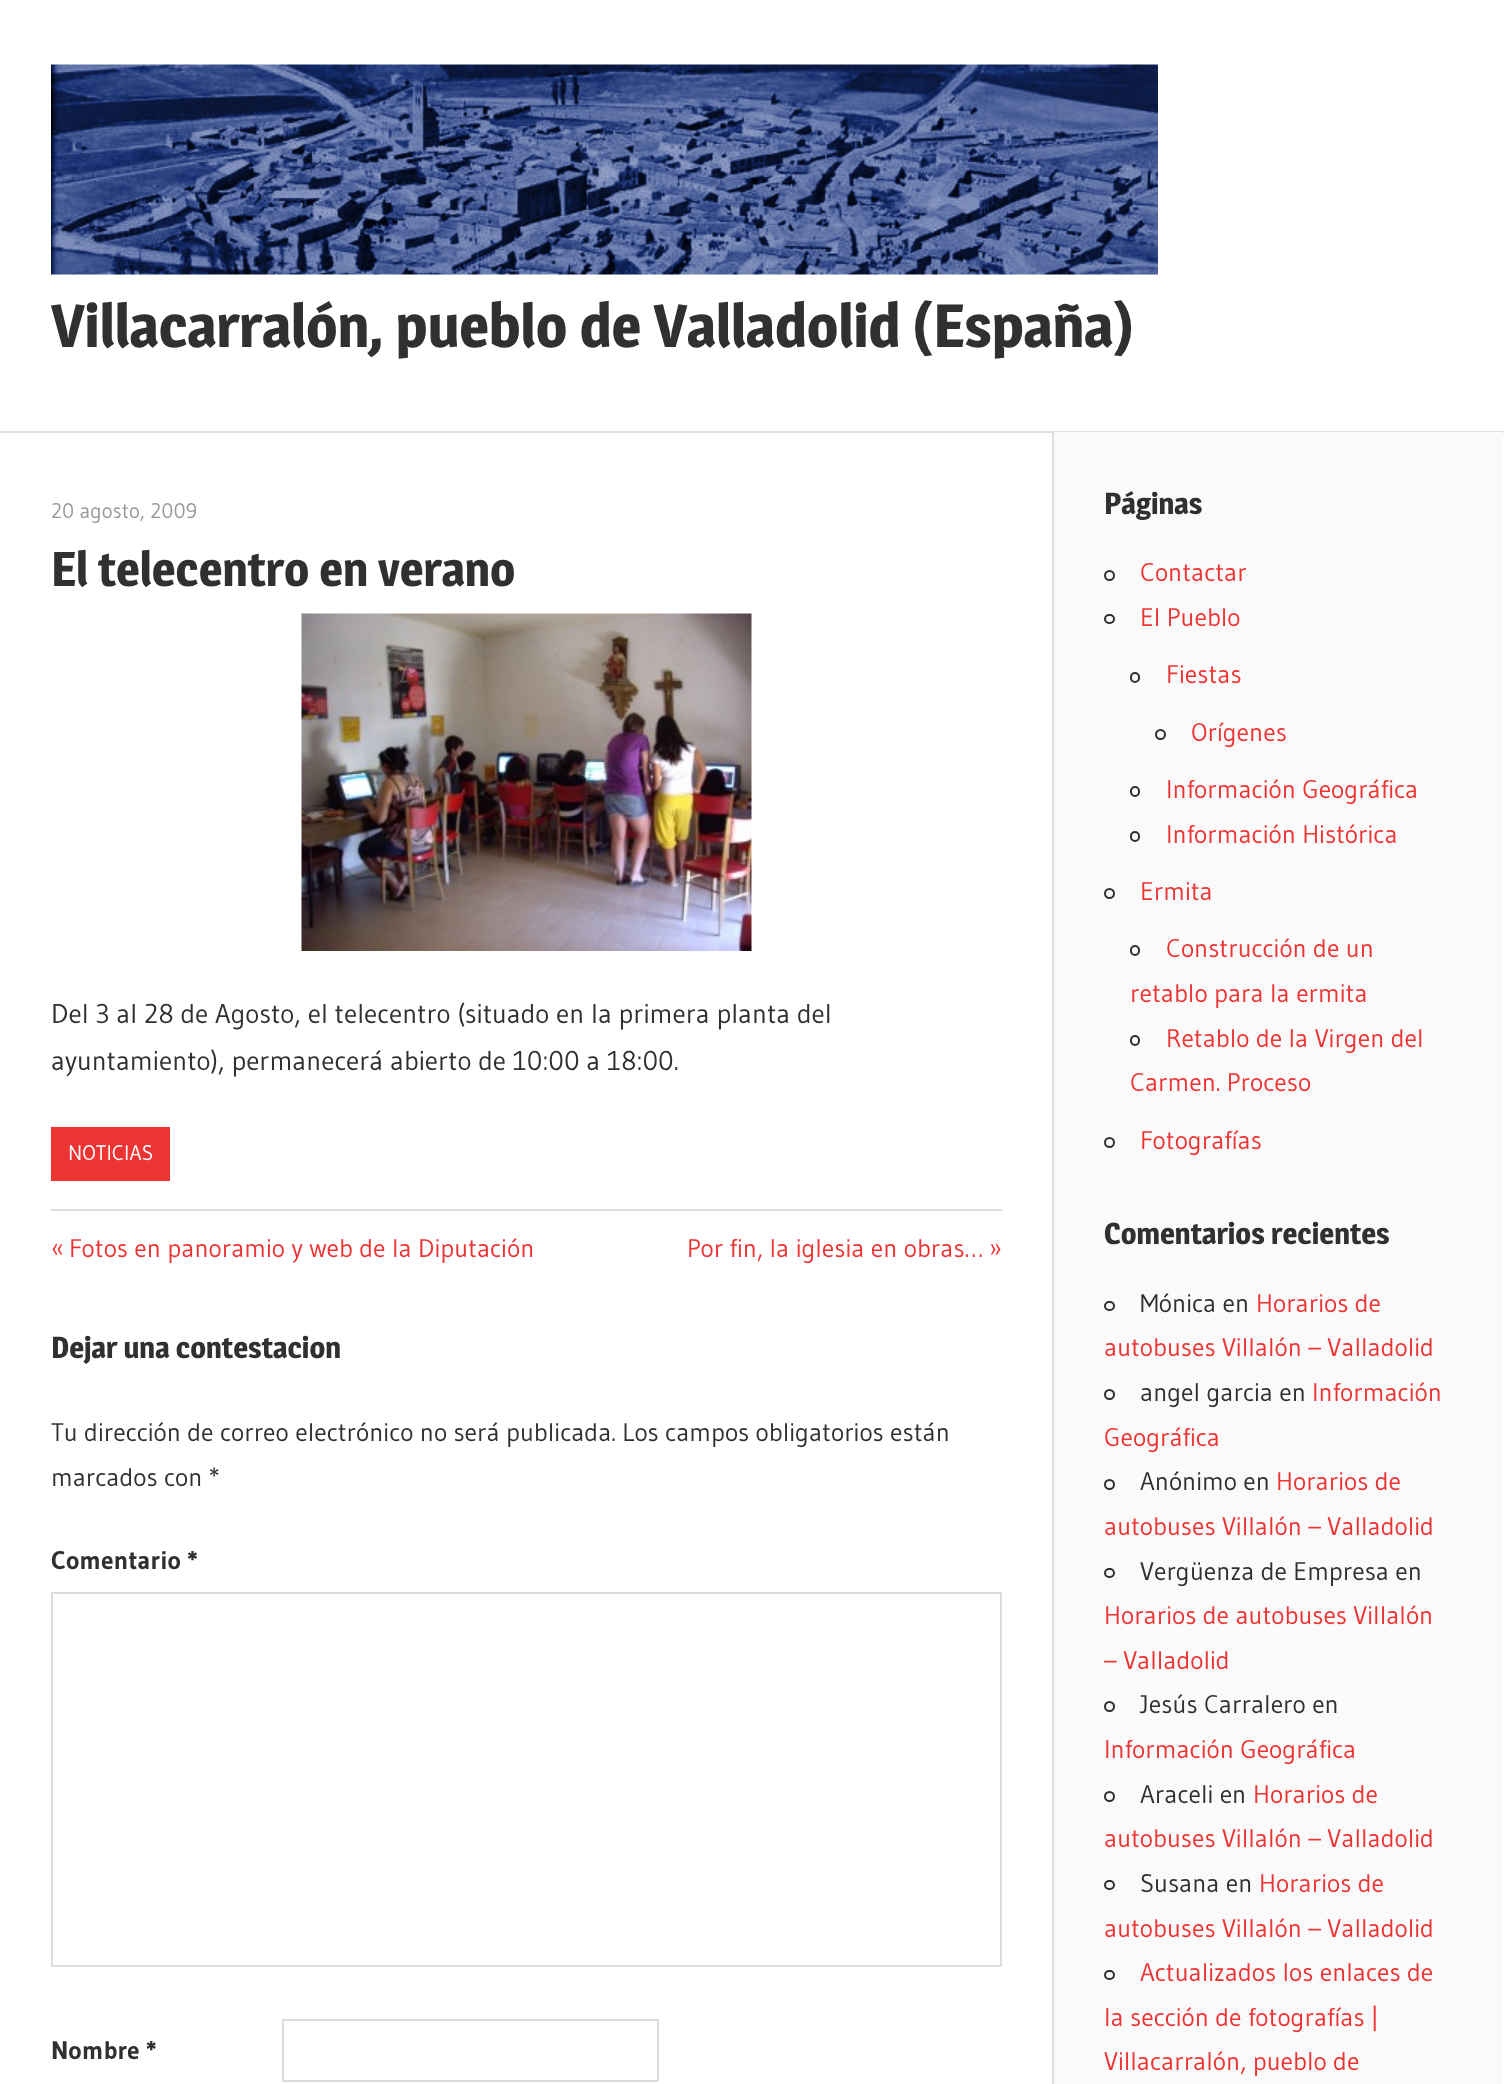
<?xml version="1.0" encoding="UTF-8"?>
<svg xmlns="http://www.w3.org/2000/svg" width="1504" height="2084">
    <rect width="100%" height="100%" fill="#FFFFFF"/>
    <rect x="0" y="431" width="1504" height="2" fill="#DDDDDD"/>
    <image x="51" y="64" width="1107" height="211" href="img_01.png"/>
    <text x="51" y="347" font-family="Magra" font-size="60" font-weight="700" fill="#303030">Villacarralón, pueblo de Valladolid (España)</text>
    <text x="51" y="518" font-family="Gudea" font-size="21" fill="#999999">20 agosto, 2009</text>
    <text x="51" y="586" font-family="Magra" font-size="48" font-weight="700" fill="#303030">El telecentro en verano</text>
    <image x="301" y="613" width="451" height="338" href="img_02.png"/>
    <text font-family="Gudea" font-size="27" fill="#303030">
        <tspan x="51" y="1023">Del 3 al 28 de Agosto, el telecentro (situado en la primera planta del</tspan>
        <tspan x="51" y="1070">ayuntamiento), permanecerá abierto de 10:00 a 18:00.</tspan>
    </text>
    <rect x="51" y="1127" width="119" height="54" fill="#EE3333"/>
    <text x="68" y="1160" font-family="Gudea" font-size="21" fill="#FFFFFF">NOTICIAS</text>
    <rect x="51" y="1209" width="951" height="2" fill="#DDDDDD"/>
    <text x="51" y="1257" font-family="Gudea" font-size="25.5" fill="#EE3333">«</text>
    <text x="69" y="1257" font-family="Gudea" font-size="25.5" fill="#EE3333">Fotos en panoramio y web de la Diputación</text>
    <text x="687" y="1257" font-family="Gudea" font-size="25.5" fill="#EE3333">Por fin, la iglesia en obras…</text>
    <text x="989" y="1257" font-family="Gudea" font-size="25.5" fill="#EE3333">»</text>
    <text x="51" y="1358" font-family="Magra" font-size="30" font-weight="700" fill="#303030">Dejar una contestacion</text>
    <text font-family="Gudea" font-size="25.5" fill="#303030">
        <tspan x="51" y="1441">Tu dirección de correo electrónico no será publicada. Los campos obligatorios están</tspan>
        <tspan x="51" y="1486">marcados con *</tspan>
    </text>
    <text x="51" y="1569" font-family="Gudea" font-size="25.5" font-weight="700" fill="#303030">Comentario *</text>
    <rect x="52" y="1593" width="949" height="373" fill="none" stroke="#DDDDDD" stroke-width="2"/>
    <text x="51" y="2059" font-family="Gudea" font-size="25.5" font-weight="700" fill="#303030">Nombre *</text>
    <rect x="283" y="2020" width="375" height="61" fill="none" stroke="#DDDDDD" stroke-width="2"/>
    <rect x="1054" y="432" width="449" height="1652" fill="#FAFAFA"/>
    <rect x="1052" y="432" width="2" height="1652" fill="#DDDDDD"/>
    <text x="1104" y="514" font-family="Magra" font-size="30" font-weight="700" fill="#303030">Páginas</text>
    <circle cx="1109.5" cy="575.5" r="4.5" fill="none" stroke="#303030" stroke-width="2"/>
    <text x="1140" y="581" font-family="Gudea" font-size="25.5" fill="#EE3333">Contactar</text>
    <rect x="1105" y="615" width="9" height="8" rx="4" fill="none" stroke="#303030" stroke-width="2"/>
    <text x="1140" y="626" font-family="Gudea" font-size="25.5" fill="#EE3333">El Pueblo</text>
    <rect x="1131" y="673" width="8" height="9" rx="4" fill="none" stroke="#303030" stroke-width="2"/>
    <text x="1166" y="683" font-family="Gudea" font-size="25.5" fill="#EE3333">Fiestas</text>
    <circle cx="1160.5" cy="734.5" r="4.5" fill="none" stroke="#303030" stroke-width="2"/>
    <text x="1191" y="741" font-family="Gudea" font-size="25.5" fill="#EE3333">Orígenes</text>
    <rect x="1131" y="787" width="8" height="9" rx="4" fill="none" stroke="#303030" stroke-width="2"/>
    <text x="1166" y="798" font-family="Gudea" font-size="25.5" fill="#EE3333">Información Geográfica</text>
    <rect x="1131" y="832" width="8" height="9" rx="4" fill="none" stroke="#303030" stroke-width="2"/>
    <text x="1166" y="843" font-family="Gudea" font-size="25.5" fill="#EE3333">Información Histórica</text>
    <circle cx="1109.5" cy="893.5" r="4.5" fill="none" stroke="#303030" stroke-width="2"/>
    <text x="1140" y="900" font-family="Gudea" font-size="25.5" fill="#EE3333">Ermita</text>
    <rect x="1131" y="946" width="8" height="9" rx="4" fill="none" stroke="#303030" stroke-width="2"/>
    <text x="1166" y="957" font-family="Gudea" font-size="25.5" fill="#EE3333">Construcción de un</text>
    <text x="1130" y="1002" font-family="Gudea" font-size="25.5" fill="#EE3333">retablo para la ermita</text>
    <rect x="1131" y="1036" width="8" height="9" rx="4" fill="none" stroke="#303030" stroke-width="2"/>
    <text x="1166" y="1047" font-family="Gudea" font-size="25.5" fill="#EE3333">Retablo de la Virgen del</text>
    <text x="1130" y="1091" font-family="Gudea" font-size="25.5" fill="#EE3333">Carmen. Proceso</text>
    <circle cx="1109.5" cy="1142.5" r="4.5" fill="none" stroke="#303030" stroke-width="2"/>
    <text x="1140" y="1149" font-family="Gudea" font-size="25.5" fill="#EE3333">Fotografías</text>
    <text x="1104" y="1244" font-family="Magra" font-size="30" font-weight="700" fill="#303030">Comentarios recientes</text>
    <rect x="1105" y="1302" width="9" height="8" rx="4" fill="none" stroke="#303030" stroke-width="2"/>
    <text x="1140" y="1312" font-family="Gudea" font-size="25.5" fill="#303030">Mónica en</text>
    <text x="1256" y="1312" font-family="Gudea" font-size="25.5" fill="#EE3333">Horarios de</text>
    <text x="1104" y="1356" font-family="Gudea" font-size="25.5" fill="#EE3333">autobuses Villalón – Valladolid</text>
    <circle cx="1109.5" cy="1394.5" r="4.5" fill="none" stroke="#303030" stroke-width="2"/>
    <text x="1140" y="1401" font-family="Gudea" font-size="25.5" fill="#303030">angel garcia en</text>
    <text x="1312" y="1401" font-family="Gudea" font-size="25.5" fill="#EE3333">Información</text>
    <text x="1104" y="1446" font-family="Gudea" font-size="25.5" fill="#EE3333">Geográfica</text>
    <circle cx="1109.5" cy="1484.5" r="4.5" fill="none" stroke="#303030" stroke-width="2"/>
    <text x="1140" y="1490" font-family="Gudea" font-size="25.5" fill="#303030">Anónimo en</text>
    <text x="1276" y="1490" font-family="Gudea" font-size="25.5" fill="#EE3333">Horarios de</text>
    <text x="1104" y="1535" font-family="Gudea" font-size="25.5" fill="#EE3333">autobuses Villalón – Valladolid</text>
    <rect x="1105" y="1569" width="9" height="8" rx="4" fill="none" stroke="#303030" stroke-width="2"/>
    <text x="1140" y="1580" font-family="Gudea" font-size="25.5" fill="#303030">Vergüenza de Empresa en</text>
    <text font-family="Gudea" font-size="25.5" fill="#EE3333">
        <tspan x="1104" y="1624">Horarios de autobuses Villalón</tspan>
        <tspan x="1104" y="1669">– Valladolid</tspan>
    </text>
    <circle cx="1109.5" cy="1706.5" r="4.5" fill="none" stroke="#303030" stroke-width="2"/>
    <text x="1140" y="1713" font-family="Gudea" font-size="25.5" fill="#303030">Jesús Carralero en</text>
    <text x="1104" y="1758" font-family="Gudea" font-size="25.5" fill="#EE3333">Información Geográfica</text>
    <circle cx="1109.5" cy="1796.5" r="4.5" fill="none" stroke="#303030" stroke-width="2"/>
    <text x="1140" y="1803" font-family="Gudea" font-size="25.5" fill="#303030">Araceli en</text>
    <text x="1253" y="1803" font-family="Gudea" font-size="25.5" fill="#EE3333">Horarios de</text>
    <text x="1104" y="1847" font-family="Gudea" font-size="25.5" fill="#EE3333">autobuses Villalón – Valladolid</text>
    <rect x="1105" y="1881" width="9" height="8" rx="4" fill="none" stroke="#303030" stroke-width="2"/>
    <text x="1140" y="1892" font-family="Gudea" font-size="25.5" fill="#303030">Susana en</text>
    <text x="1259" y="1892" font-family="Gudea" font-size="25.5" fill="#EE3333">Horarios de</text>
    <text x="1104" y="1937" font-family="Gudea" font-size="25.5" fill="#EE3333">autobuses Villalón – Valladolid</text>
    <rect x="1105" y="1971" width="9" height="8" rx="4" fill="none" stroke="#303030" stroke-width="2"/>
    <text x="1140" y="1981" font-family="Gudea" font-size="25.5" fill="#EE3333">Actualizados los enlaces de</text>
    <text font-family="Gudea" font-size="25.5" fill="#EE3333">
        <tspan x="1104" y="2026">la sección de fotografías |</tspan>
        <tspan x="1104" y="2070">Villacarralón, pueblo de</tspan>
    </text>
</svg>
